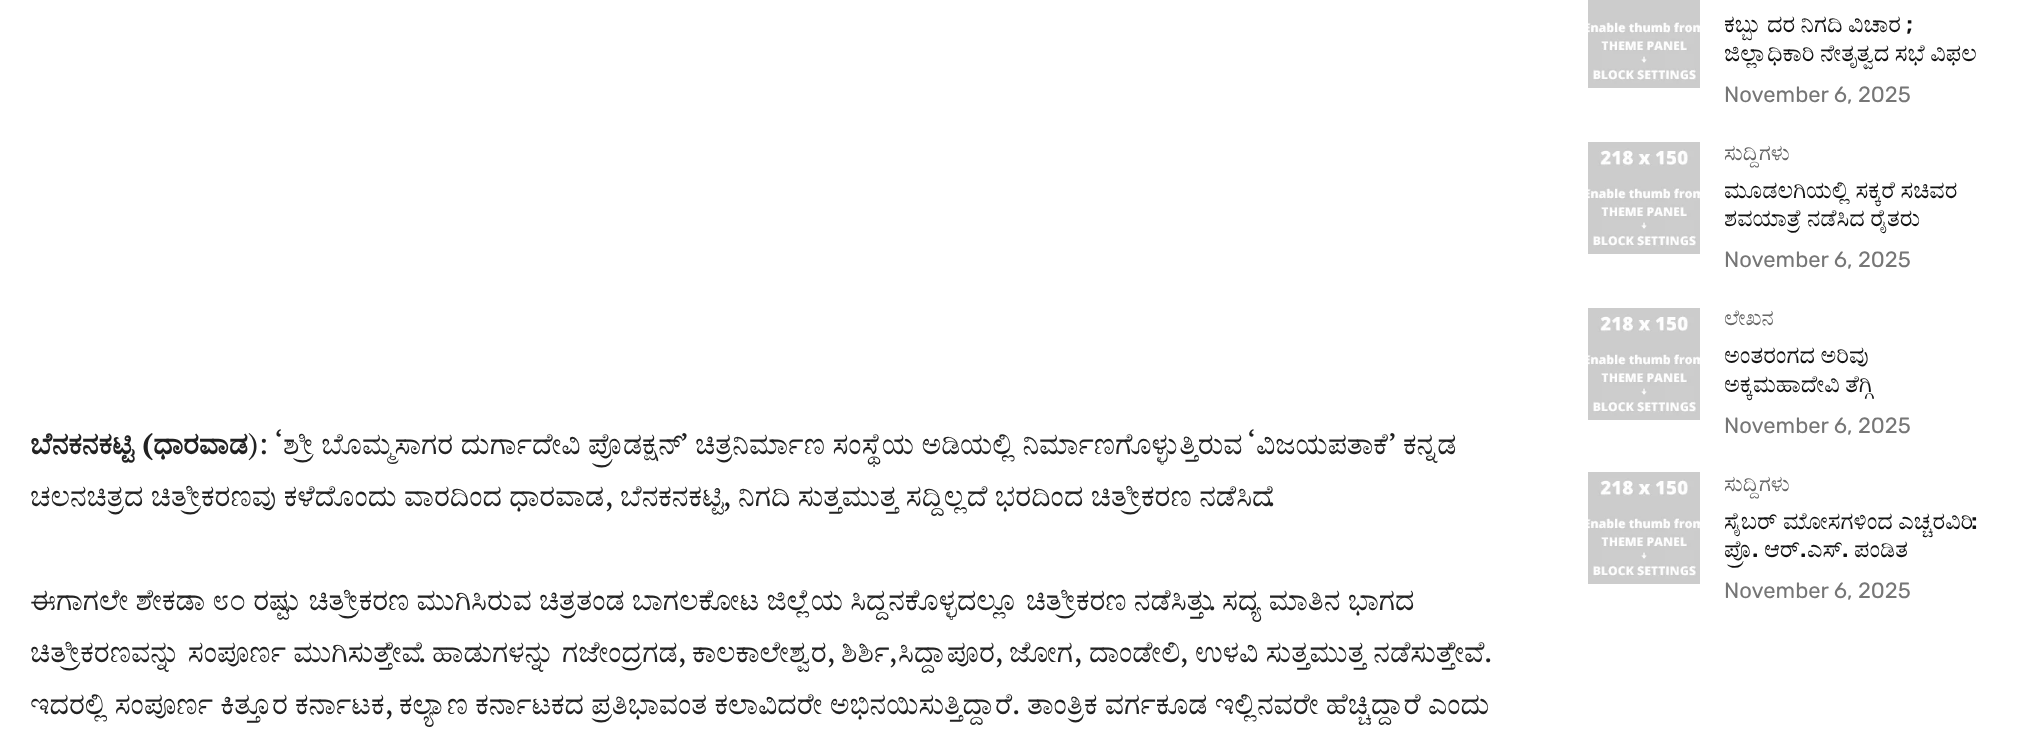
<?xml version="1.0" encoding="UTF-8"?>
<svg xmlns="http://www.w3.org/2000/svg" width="2018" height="734">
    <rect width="100%" height="100%" fill="#FFFFFF"/>
    <text x="30" y="454" font-family="FreeSerif" font-size="30" font-weight="700" fill="#222222">ಬೆನಕನಕಟ್ಟಿ</text>
    <text x="142" y="454" font-family="PT Serif" font-size="30" font-weight="700" fill="#222222">(</text>
    <text x="248" y="454" font-family="PT Serif" font-size="30" fill="#222222">): ‘</text>
    <text x="680" y="454" font-family="PT Serif" font-size="30" fill="#222222">’</text>
    <text x="1247" y="454" font-family="PT Serif" font-size="30" fill="#222222">‘</text>
    <text x="1388" y="454" font-family="PT Serif" font-size="30" fill="#222222">’</text>
    <text x="153" y="454" font-family="FreeSerif" font-size="30" font-weight="700" fill="#222222">ಧಾರವಾಡ</text>
    <text x="283" y="454" font-family="FreeSerif" font-size="30" fill="#222222">ಶ್ರೀ ಬೊಮ್ಮಸಾಗರ ದುರ್ಗಾದೇವಿ ಪ್ರೊಡಕ್ಷನ್</text>
    <text x="695" y="454" font-family="FreeSerif" font-size="30" fill="#222222">ಚಿತ್ರನಿರ್ಮಾಣ ಸಂಸ್ಥೆಯ ಅಡಿಯಲ್ಲಿ ನಿರ್ಮಾಣಗೊಳ್ಳುತ್ತಿರುವ</text>
    <text x="1256" y="454" font-family="FreeSerif" font-size="30" fill="#222222">ವಿಜಯಪತಾಕೆ</text>
    <text x="1403" y="454" font-family="FreeSerif" font-size="30" fill="#222222">ಕನ್ನಡ</text>
    <text x="30" y="506" font-family="FreeSerif" font-size="30" fill="#222222">ಚಲನಚಿತ್ರದ ಚಿತ್ರೀಕರಣವು ಕಳೆದೊಂದು ವಾರದಿಂದ ಧಾರವಾಡ</text>
    <text x="605" y="506" font-family="PT Serif" font-size="30" fill="#222222">,</text>
    <text x="620" y="506" font-family="FreeSerif" font-size="30" fill="#222222">ಬೆನಕನಕಟ್ಟಿ</text>
    <text x="723" y="506" font-family="PT Serif" font-size="30" fill="#222222">,</text>
    <text x="738" y="506" font-family="FreeSerif" font-size="30" fill="#222222">ನಿಗದಿ ಸುತ್ತಮುತ್ತ ಸದ್ದಿಲ್ಲದೆ ಭರದಿಂದ ಚಿತ್ರೀಕರಣ ನಡೆಸಿದೆ</text>
    <text x="1267" y="506" font-family="PT Serif" font-size="30" fill="#222222">.</text>
    <text x="30" y="610" word-spacing="-0.25" font-family="FreeSerif" font-size="30" fill="#222222">ಈಗಾಗಲೇ ಶೇಕಡಾ ೮೦ ರಷ್ಟು ಚಿತ್ರೀಕರಣ ಮುಗಿಸಿರುವ ಚಿತ್ರತಂಡ ಬಾಗಲಕೋಟ ಜಿಲ್ಲೆಯ ಸಿದ್ದನಕೊಳ್ಳದಲ್ಲೂ ಚಿತ್ರೀಕರಣ ನಡೆಸಿತ್ತು</text>
    <text x="1208" y="610" font-family="PT Serif" font-size="30" fill="#222222">.</text>
    <text x="1222" y="610" word-spacing="-0.25" font-family="FreeSerif" font-size="30" fill="#222222">ಸದ್ಯ ಮಾತಿನ ಭಾಗದ</text>
    <text x="30" y="662" word-spacing="-0.25" font-family="FreeSerif" font-size="30" fill="#222222">ಚಿತ್ರೀಕರಣವನ್ನು ಸಂಪೂರ್ಣ ಮುಗಿಸುತ್ತೇವೆ</text>
    <text x="418" y="662" font-family="PT Serif" font-size="30" fill="#222222">.</text>
    <text x="432" y="662" word-spacing="-0.25" font-family="FreeSerif" font-size="30" fill="#222222">ಹಾಡುಗಳನ್ನು ಗಜೇಂದ್ರಗಡ</text>
    <text x="678" y="662" font-family="PT Serif" font-size="30" fill="#222222">,</text>
    <text x="692" y="662" font-family="FreeSerif" font-size="30" fill="#222222">ಕಾಲಕಾಲೇಶ್ವರ</text>
    <text x="827" y="662" font-family="PT Serif" font-size="30" fill="#222222">,</text>
    <text x="841" y="662" font-family="FreeSerif" font-size="30" fill="#222222">ಶಿರ್ಶಿ</text>
    <text x="889" y="662" font-family="PT Serif" font-size="30" fill="#222222">,</text>
    <text x="898" y="662" font-family="FreeSerif" font-size="30" fill="#222222">ಸಿದ್ದಾಪೂರ</text>
    <text x="1009" y="662" font-family="FreeSerif" font-size="30" fill="#222222">ಜೋಗ</text>
    <text x="1089" y="662" font-family="FreeSerif" font-size="30" fill="#222222">ದಾಂಡೇಲಿ</text>
    <text x="1195" y="662" word-spacing="-0.25" font-family="FreeSerif" font-size="30" fill="#222222">ಉಳವಿ ಸುತ್ತಮುತ್ತ ನಡೆಸುತ್ತೇವೆ</text>
    <text x="995" y="662" font-family="PT Serif" font-size="30" fill="#222222">,</text>
    <text x="1074" y="662" font-family="PT Serif" font-size="30" fill="#222222">,</text>
    <text x="1180" y="662" font-family="PT Serif" font-size="30" fill="#222222">,</text>
    <text x="1484" y="662" font-family="PT Serif" font-size="30" fill="#222222">.</text>
    <text x="30" y="714" word-spacing="-0.25" font-family="FreeSerif" font-size="30" fill="#222222">ಇದರಲ್ಲಿ ಸಂಪೂರ್ಣ ಕಿತ್ತೂರ ಕರ್ನಾಟಕ</text>
    <text x="385" y="714" font-family="PT Serif" font-size="30" fill="#222222">,</text>
    <text x="399" y="714" word-spacing="-0.25" font-family="FreeSerif" font-size="30" fill="#222222">ಕಲ್ಯಾಣ ಕರ್ನಾಟಕದ ಪ್ರತಿಭಾವಂತ ಕಲಾವಿದರೇ ಅಭಿನಯಿಸುತ್ತಿದ್ದಾರೆ</text>
    <text x="1012" y="714" font-family="PT Serif" font-size="30" fill="#222222">.</text>
    <text x="1027" y="714" word-spacing="-0.25" font-family="FreeSerif" font-size="30" fill="#222222">ತಾಂತ್ರಿಕ ವರ್ಗಕೂಡ ಇಲ್ಲಿನವರೇ ಹೆಚ್ಚಿದ್ದಾರೆ ಎಂದು</text>
    <image x="1588" y="0" width="112" height="88" href="img_01.png"/>
    <text x="1724" y="32" word-spacing="-0.5" font-family="FreeSerif" font-size="24" fill="#111111">ಕಬ್ಬು ದರ ನಿಗದಿ ವಿಚಾರ</text>
    <text x="1906" y="32" font-family="Rubik" font-size="24" font-weight="500" fill="#111111">;</text>
    <text x="1724" y="61" word-spacing="-0.5" font-family="FreeSerif" font-size="24" fill="#111111">ಜಿಲ್ಲಾಧಿಕಾರಿ ನೇತೃತ್ವದ ಸಭೆ ವಿಫಲ</text>
    <text x="1724" y="102" font-family="Rubik" font-size="22" fill="#767676">November 6, 2025</text>
    <image x="1588" y="142" width="112" height="112" href="img_02.png"/>
    <text x="1724" y="160" font-family="FreeSerif" font-size="22" fill="#666666">ಸುದ್ದಿಗಳು</text>
    <text font-family="FreeSerif" font-size="24" fill="#111111">
        <tspan x="1724" y="198" word-spacing="-0.5">ಮೂಡಲಗಿಯಲ್ಲಿ ಸಕ್ಕರೆ ಸಚಿವರ</tspan>
        <tspan x="1724" y="226" word-spacing="-0.5">ಶವಯಾತ್ರೆ ನಡೆಸಿದ ರೈತರು</tspan>
    </text>
    <text x="1724" y="267" font-family="Rubik" font-size="22" fill="#767676">November 6, 2025</text>
    <image x="1588" y="308" width="112" height="112" href="img_02.png"/>
    <text x="1724" y="325" font-family="FreeSerif" font-size="22" fill="#666666">ಲೇಖನ</text>
    <text font-family="FreeSerif" font-size="24" fill="#111111">
        <tspan x="1724" y="363" word-spacing="-0.5">ಅಂತರಂಗದ ಅರಿವು</tspan>
        <tspan x="1724" y="392" word-spacing="-0.5">ಅಕ್ಕಮಹಾದೇವಿ ತೆಗ್ಗಿ</tspan>
    </text>
    <text x="1724" y="433" font-family="Rubik" font-size="22" fill="#767676">November 6, 2025</text>
    <image x="1588" y="472" width="112" height="112" href="img_02.png"/>
    <text x="1724" y="491" font-family="FreeSerif" font-size="22" fill="#666666">ಸುದ್ದಿಗಳು</text>
    <text x="1724" y="529" word-spacing="-0.5" font-family="FreeSerif" font-size="24" fill="#111111">ಸೈಬರ್ ಮೋಸಗಳಿಂದ ಎಚ್ಚರವಿರಿ</text>
    <text x="1971" y="529" font-family="Rubik" font-size="24" font-weight="500" fill="#111111">:</text>
    <text x="1724" y="557" font-family="FreeSerif" font-size="24" fill="#111111">ಪ್ರೊ</text>
    <text x="1752" y="557" font-family="Rubik" font-size="24" font-weight="500" fill="#111111">.</text>
    <text x="1764" y="557" font-family="FreeSerif" font-size="24" fill="#111111">ಆರ್</text>
    <text x="1800" y="557" font-family="Rubik" font-size="24" font-weight="500" fill="#111111">.</text>
    <text x="1807" y="557" font-family="FreeSerif" font-size="24" fill="#111111">ಎಸ್</text>
    <text x="1842" y="557" font-family="Rubik" font-size="24" font-weight="500" fill="#111111">.</text>
    <text x="1854" y="557" font-family="FreeSerif" font-size="24" fill="#111111">ಪಂಡಿತ</text>
    <text x="1724" y="598" font-family="Rubik" font-size="22" fill="#767676">November 6, 2025</text>
</svg>
